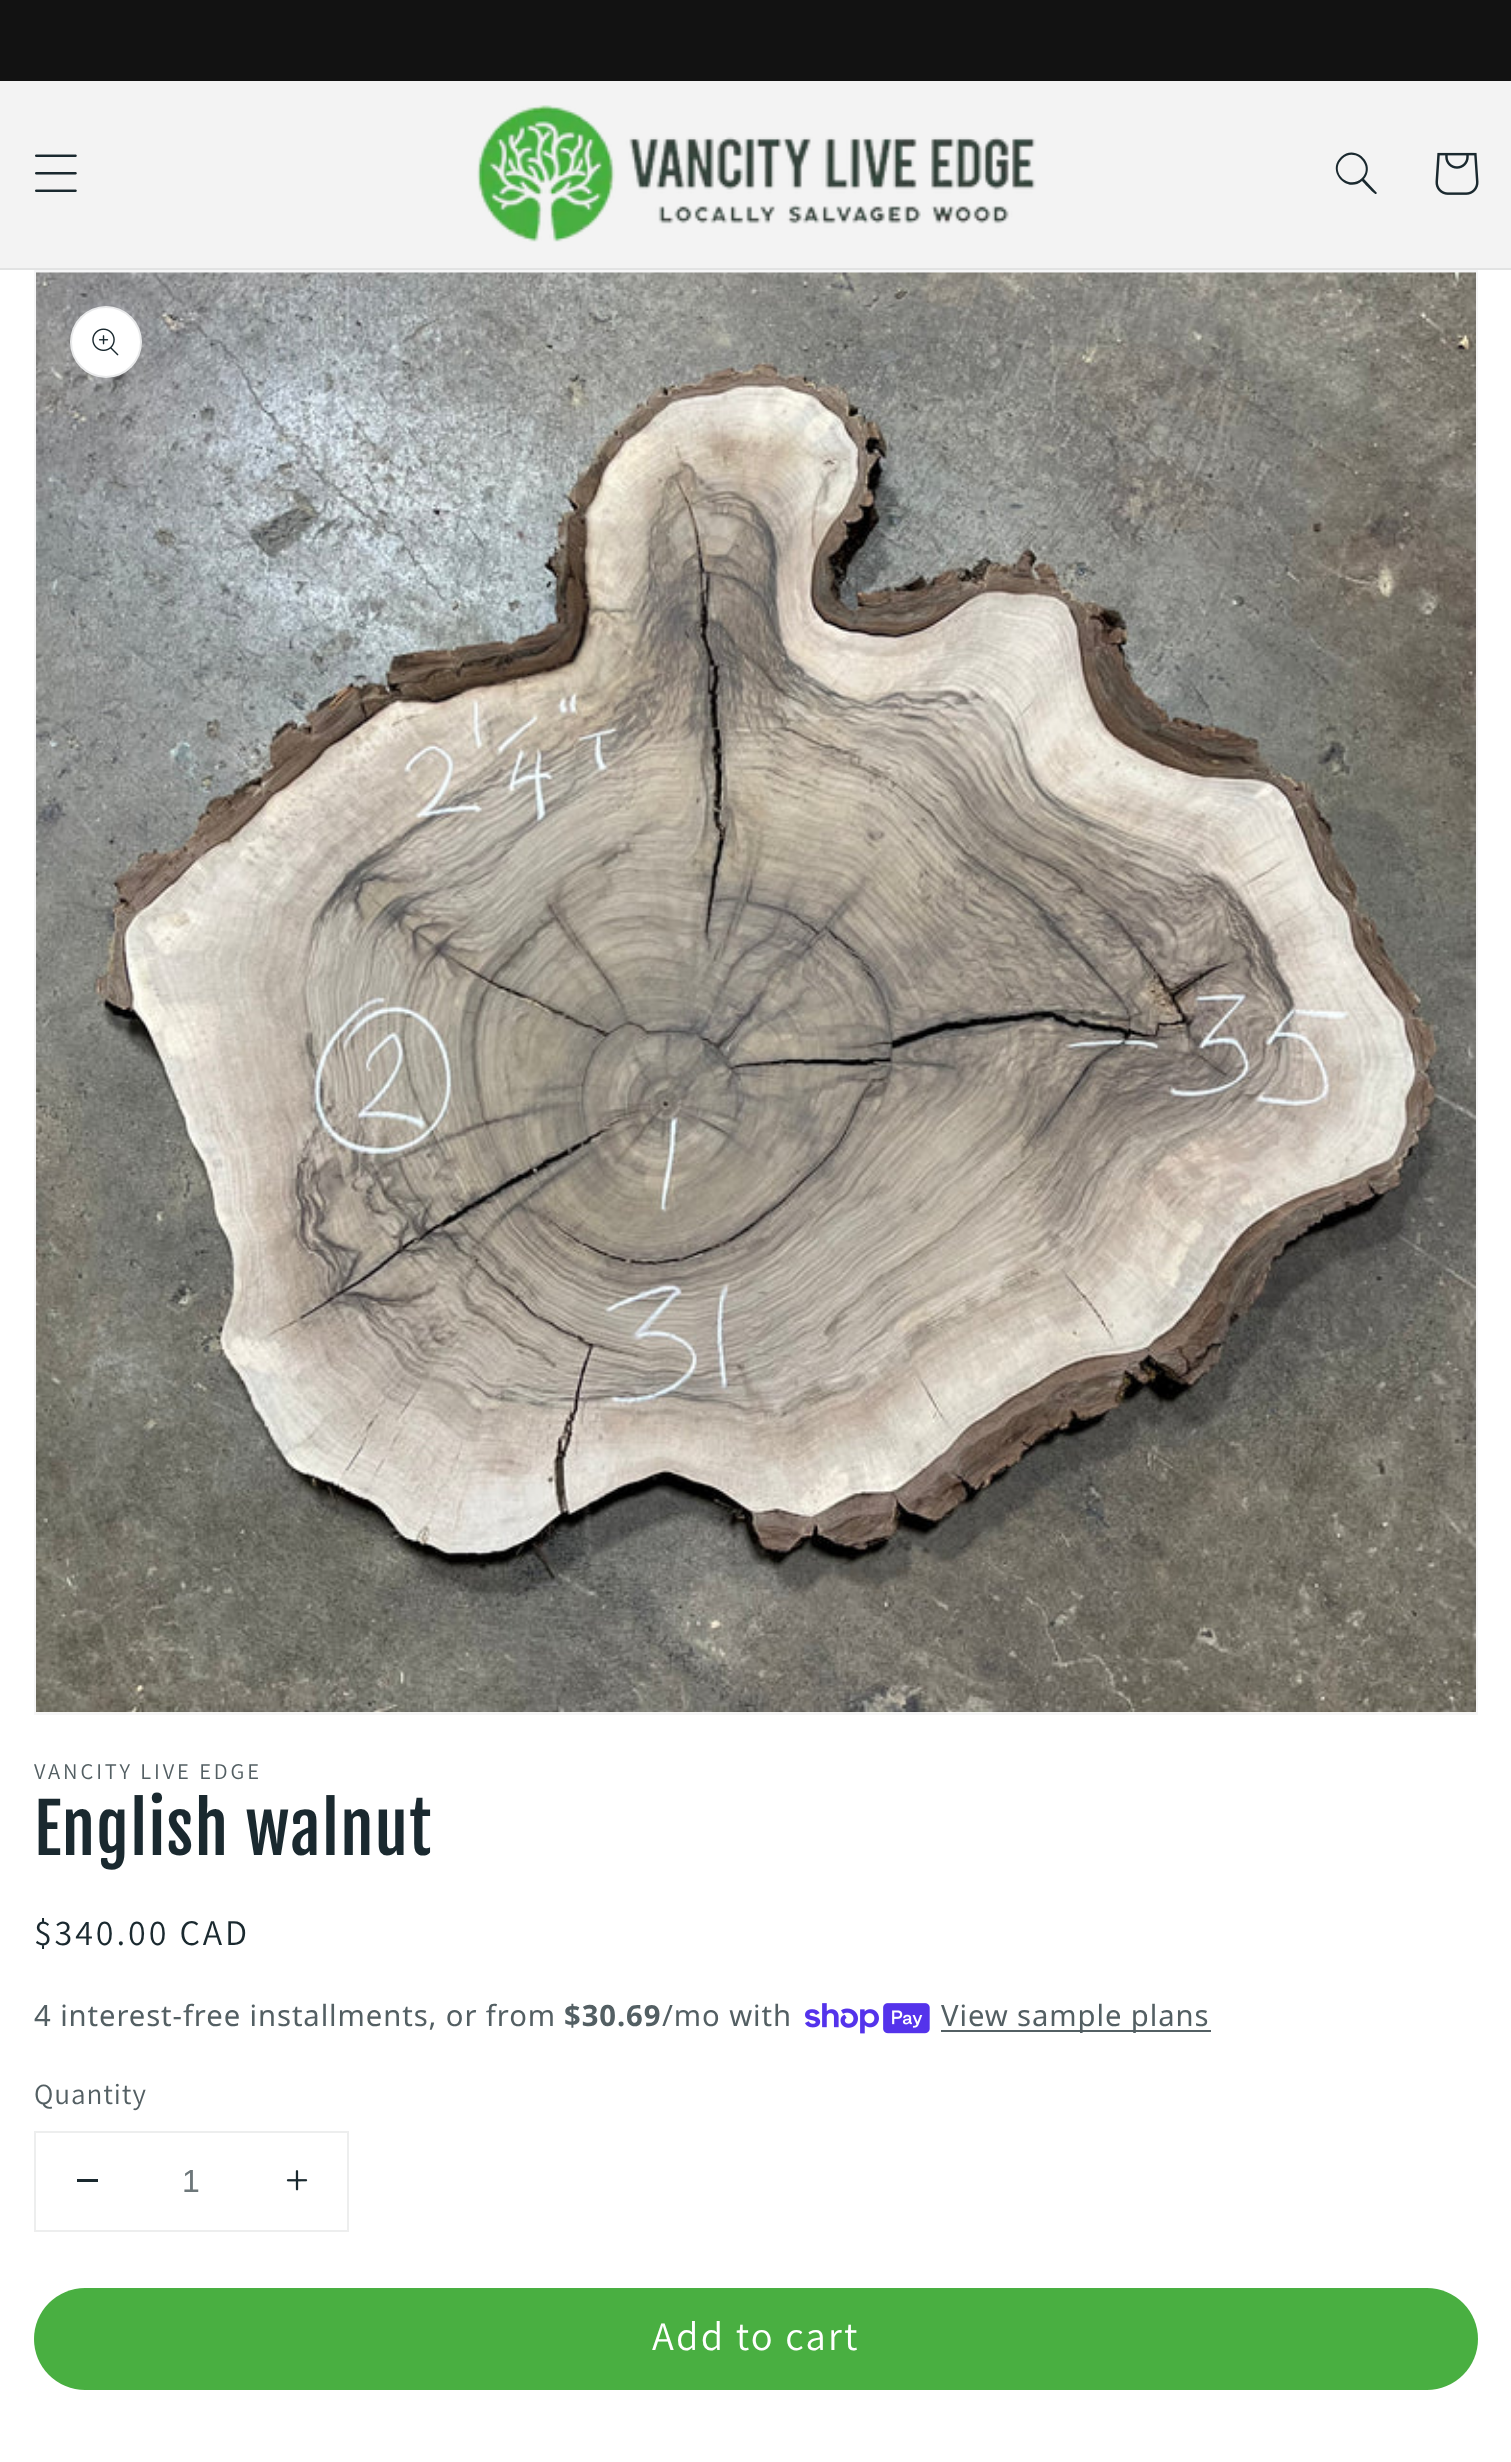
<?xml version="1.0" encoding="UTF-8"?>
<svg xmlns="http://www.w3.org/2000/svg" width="1511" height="2462">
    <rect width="100%" height="100%" fill="#FFFFFF"/>
    <rect x="0" y="0" width="1511" height="81" fill="#121212"/>
    <rect x="0" y="81" width="1511" height="187" fill="#F3F3F3"/>
    <rect x="0" y="268" width="1511" height="2" fill="#E2E3E3"/>
    <image x="35" y="154" width="42" height="38" href="img_01.png"/>
    <image x="477" y="105" width="559" height="137" href="img_02.png"/>
    <path d="M 1362 178 C 1349 191 1329 172 1342 159 C 1355 146 1374 166 1362 178 Z M 1362 181 C 1347 194 1326 171 1341 157 C 1355 143 1377 164 1364 179 L 1377 193 L 1376 194 C 1375 195 1364 183 1362 181 Z" fill="#1A292F" fill-rule="evenodd"/>
    <image x="1435" y="152" width="44" height="43" href="img_03.png"/>
    <rect x="35" y="271" width="1442" height="1443" fill="none" stroke="#F6F6F7" stroke-width="2"/>
    <image x="36" y="272" width="1440" height="1441" href="img_04.png"/>
    <circle cx="106" cy="342" r="36" fill="#FFFFFF"/>
    <circle cx="106" cy="342" r="35" fill="none" stroke="#1A292F" stroke-opacity="0.1" stroke-width="2"/>
    <image x="92" y="328" width="27" height="28" href="img_05.png"/>
    <text x="34" y="1779" font-family="Assistant" font-size="22.5" letter-spacing="2.9" fill="#535F63">VANCITY LIVE EDGE</text>
    <text x="34" y="1855" font-family="Fjalla One" font-size="67.5" letter-spacing="1.4" fill="#1A292F">English walnut</text>
    <text x="34" y="1945" font-family="Assistant" font-size="36" letter-spacing="2.9" fill="#1A292F">$340.00 CAD</text>
    <text x="34" y="2026" font-family="Noto Sans" font-size="29.25" letter-spacing="0.9" fill="#535F63">4 interest-free installments, or from</text>
    <text x="564" y="2026" font-family="Noto Sans" font-size="29.25" font-weight="700" letter-spacing="0.9" fill="#535F63">$30.69</text>
    <text x="662" y="2026" font-family="Noto Sans" font-size="29.25" letter-spacing="0.9" fill="#535F63">/mo with</text>
    <image x="805" y="2003" width="125" height="31" href="img_06.png"/>
    <rect x="941" y="2030" width="270" height="2" fill="#535F63"/>
    <text x="941" y="2026" font-family="Noto Sans" font-size="29.25" letter-spacing="0.9" fill="#535F63">View sample plans</text>
    <text x="34" y="2104" font-family="Assistant" font-size="29.25" letter-spacing="0.9" fill="#535F63">Quantity</text>
    <rect x="35" y="2132" width="313" height="99" fill="none" stroke="#EDEEEE" stroke-width="2"/>
    <rect x="77" y="2179" width="21" height="3" fill="#1A292F"/>
    <text x="182" y="2192" font-family="Liberation Sans" font-size="32" fill="#6D777A">1</text>
    <image x="286" y="2170" width="22" height="21" href="img_07.png"/>
    <rect x="34" y="2288" width="1444" height="102" rx="51" fill="#49AF41"/>
    <text x="652" y="2350" font-family="Assistant" font-size="40.5" letter-spacing="2.25" fill="#FFFFFF">Add to cart</text>
</svg>
